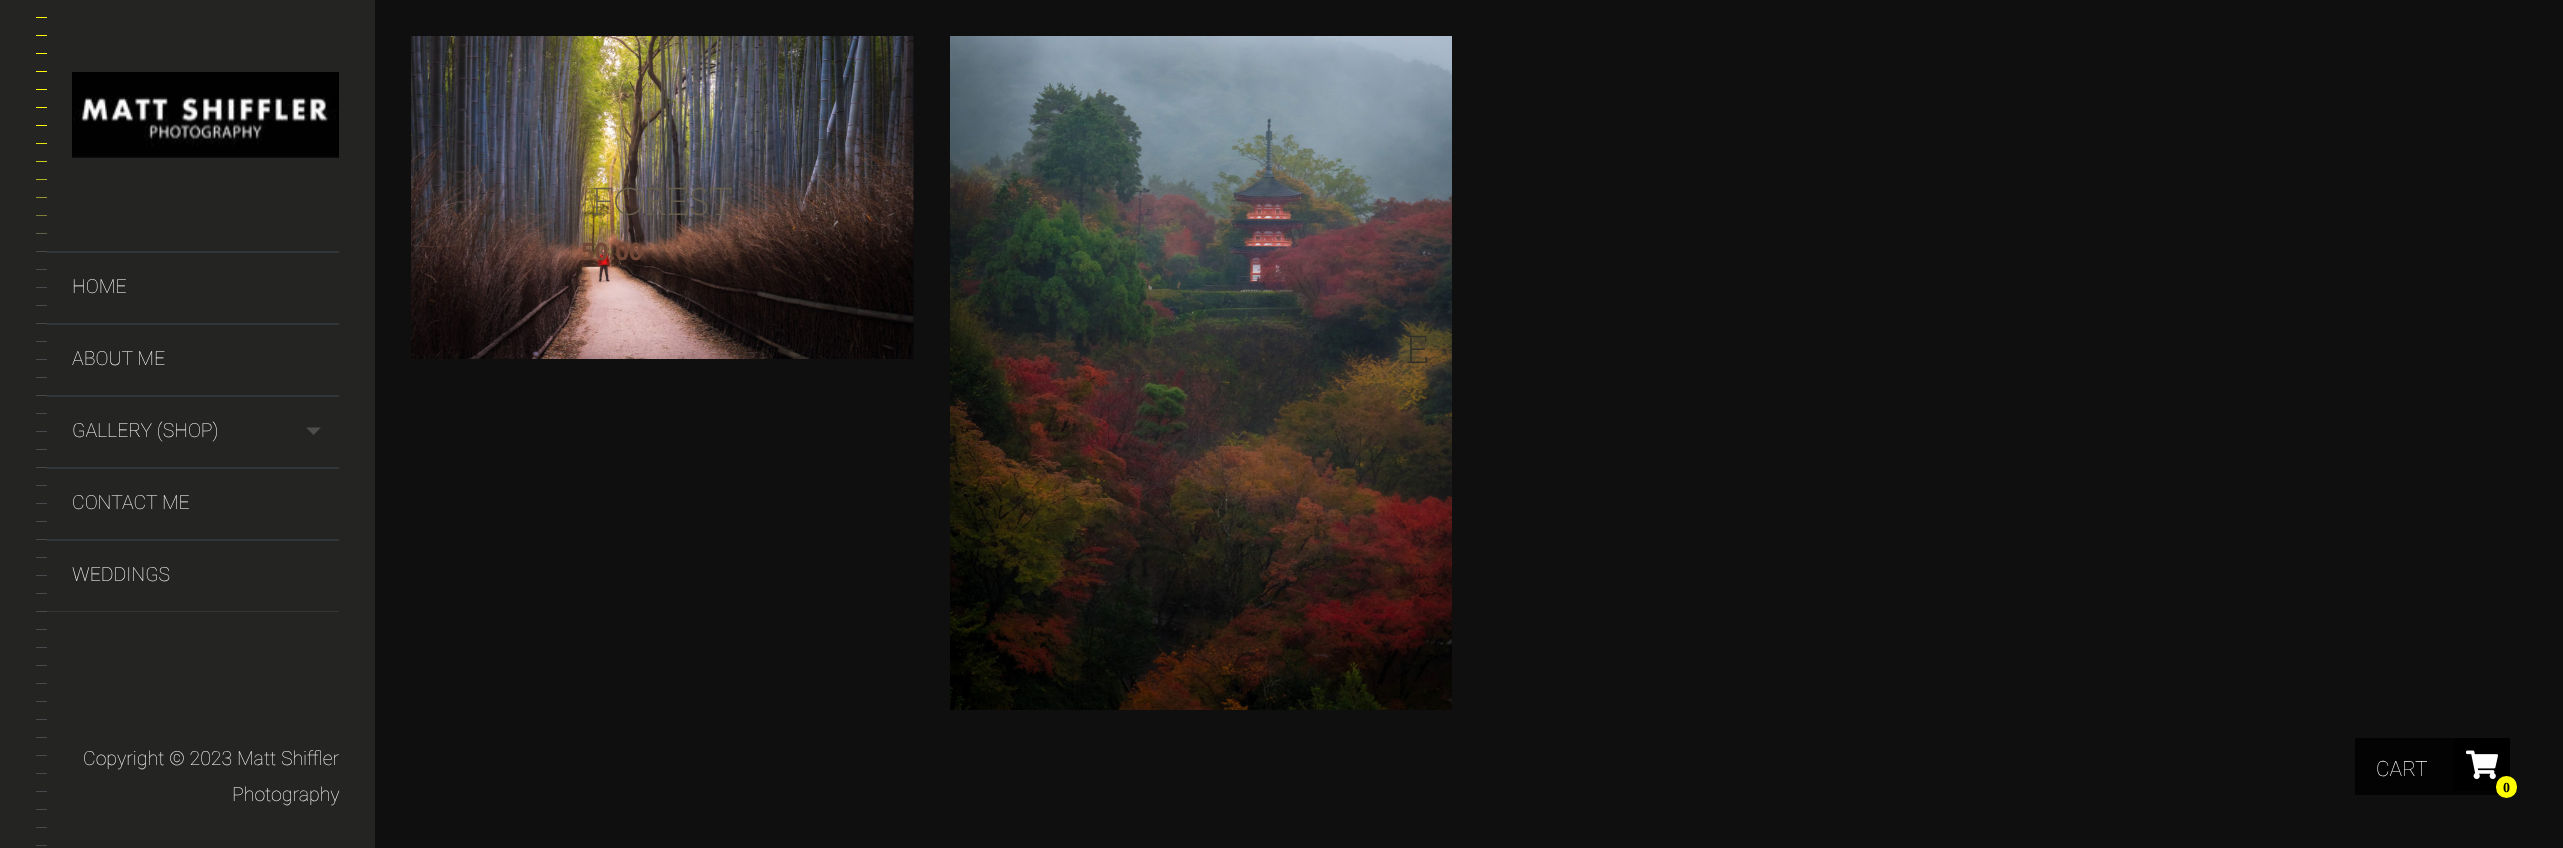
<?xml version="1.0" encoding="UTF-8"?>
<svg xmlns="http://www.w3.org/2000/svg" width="2563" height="848">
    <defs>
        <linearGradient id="g1" gradientUnits="userSpaceOnUse" x1="37" y1="0" x2="37" y2="252"><stop offset="0.5" stop-color="#FFFC00"/><stop offset="1" stop-color="#464A4D"/></linearGradient>
    </defs>
    <rect width="100%" height="100%" fill="#0F0F10"/>
    <rect x="0" y="0" width="375" height="848" fill="#242423"/>
    <rect x="36" y="269" width="11" height="577" fill="#464A4D"/>
    <rect x="36" y="17" width="11" height="235" fill="url(#g1)"/>
    <image x="36" y="0" width="11" height="848" href="img_01.png"/>
    <image x="72" y="72" width="267" height="86" href="img_02.png"/>
    <rect x="47" y="251" width="292" height="2" fill="#333638"/>
    <rect x="47" y="323" width="292" height="2" fill="#333638"/>
    <text x="72" y="293" font-family="Roboto" font-size="19.5" font-weight="100" fill="#FFFFFF">HOME</text>
    <rect x="47" y="395" width="292" height="2" fill="#333638"/>
    <text x="72" y="365" font-family="Roboto" font-size="19.5" font-weight="100" fill="#FFFFFF">ABOUT ME</text>
    <rect x="47" y="467" width="292" height="2" fill="#333638"/>
    <text x="72" y="437" font-family="Roboto" font-size="19.5" font-weight="100" fill="#FFFFFF">GALLERY (SHOP)</text>
    <path d="M 306 427.5 H 321 L 313.5 435 Z" fill="#4D4D4D"/>
    <rect x="47" y="539" width="292" height="2" fill="#333638"/>
    <text x="72" y="509" font-family="Roboto" font-size="19.5" font-weight="100" fill="#FFFFFF">CONTACT ME</text>
    <rect x="47" y="611" width="292" height="1" fill="#333638"/>
    <text x="72" y="581" font-family="Roboto" font-size="19.5" font-weight="100" fill="#FFFFFF">WEDDINGS</text>
    <text x="83" y="765" font-family="Roboto" font-size="19.5" font-weight="100" fill="#FFFFFF">Copyright © 2023 Matt Shiffler</text>
    <text x="232" y="801" font-family="Roboto" font-size="19.5" font-weight="100" fill="#FFFFFF">Photography</text>
    <image x="411" y="36" width="503" height="323" href="img_03.png"/>
    <text x="592" y="215" font-family="Josefin Slab" font-size="39" fill="#675E4B">FOREST</text>
    <text x="581" y="260" font-family="Open Sans" font-size="24" font-weight="700" fill="#714837">50.00</text>
    <text x="722" y="260" font-family="Open Sans" font-size="24" font-weight="700" fill="#50342A">.</text>
    <image x="950" y="36" width="502" height="674" href="img_04.png"/>
    <text x="1406" y="363" font-family="Josefin Slab" font-size="39" fill="#312F29">E</text>
    <rect x="2355" y="738" width="145" height="57" fill="#030303"/>
    <text x="2376" y="776" font-family="Roboto" font-size="21" font-weight="100" fill="#FFFFFF">CART</text>
    <rect x="2454" y="738" width="56" height="53" fill="#000000"/>
    <image x="2466" y="750" width="32" height="29" href="img_05.png"/>
    <rect x="2496" y="776" width="21" height="22" rx="10.5" fill="#FFFC00"/>
    <text x="2503" y="792" font-family="Liberation Serif" font-size="14" font-weight="700" fill="#000000">0</text>
</svg>
